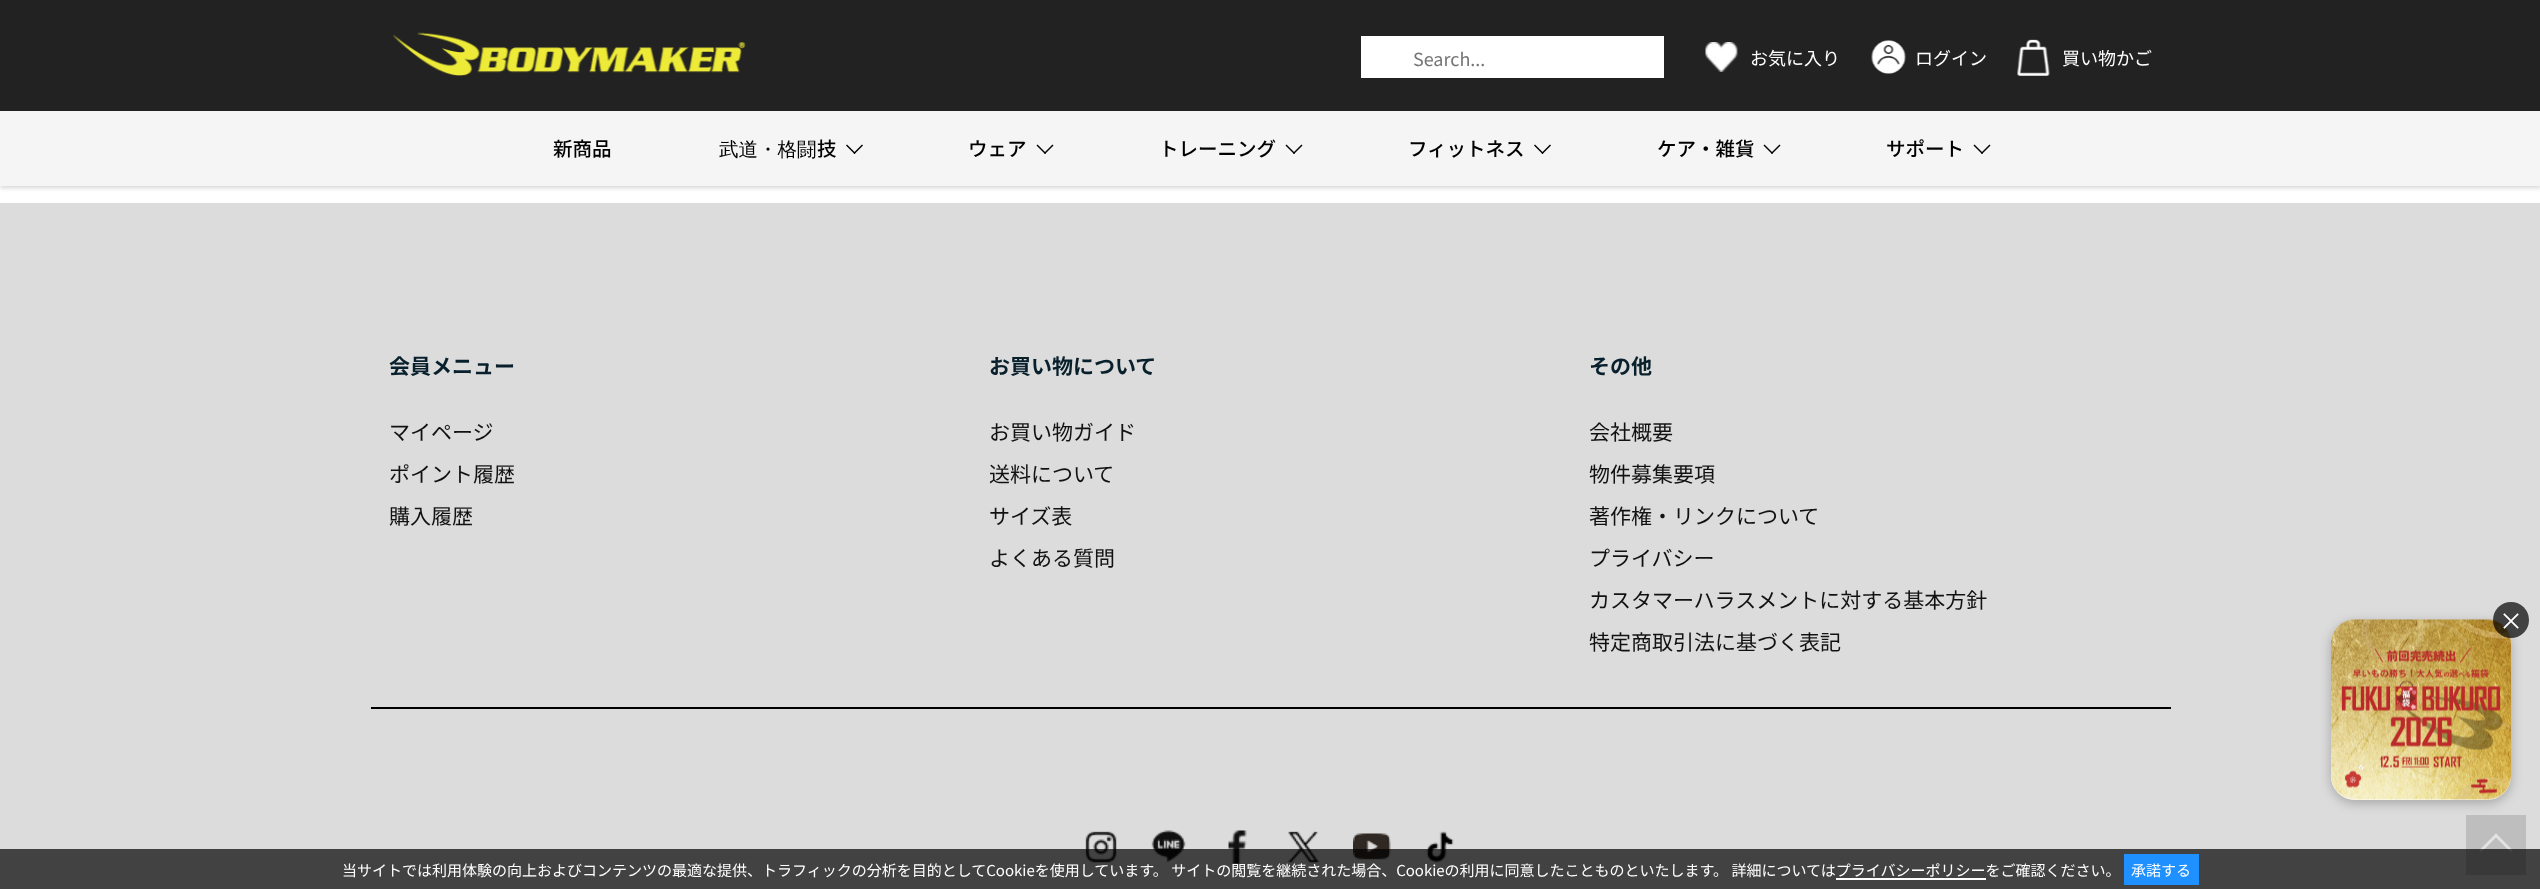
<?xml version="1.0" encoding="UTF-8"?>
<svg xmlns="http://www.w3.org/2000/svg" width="2540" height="889">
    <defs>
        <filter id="blur1" x="-50%" y="-200%" width="200%" height="500%"><feGaussianBlur stdDeviation="2"/></filter>
        <filter id="blur2" x="-50%" y="-200%" width="200%" height="500%"><feGaussianBlur stdDeviation="6"/></filter>
    </defs>
    <rect width="100%" height="100%" fill="#FFFFFF"/>
    <rect x="0" y="113" width="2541" height="75" fill="#000000" fill-opacity="0.16" filter="url(#blur1)"/>
    <rect x="0" y="0" width="2540" height="111" fill="#222222"/>
    <image x="393" y="32" width="353" height="44" href="img_01.png"/>
    <rect x="1361" y="36" width="303" height="42" fill="#FFFFFF"/>
    <text x="1413" y="66" font-family="Noto Sans JP" font-size="18" fill="#757575">Search...</text>
    <image x="1705" y="42" width="33" height="30" href="img_02.png"/>
    <text x="1750" y="65" font-family="Noto Sans JP" font-size="18" fill="#FFFFFF">お気に入り</text>
    <image x="1871" y="40" width="35" height="34" href="img_03.png"/>
    <text x="1915" y="65" font-family="Noto Sans JP" font-size="18" fill="#FFFFFF">ログイン</text>
    <image x="2017" y="39" width="33" height="37" href="img_04.png"/>
    <text x="2062" y="65" font-family="Noto Sans JP" font-size="18" fill="#FFFFFF">買い物かご</text>
    <rect x="0" y="111" width="2540" height="75" fill="#F5F5F5"/>
    <text x="553" y="156" font-family="Noto Sans JP" font-size="19.5" font-weight="500" fill="#000000">新商品</text>
    <text x="719" y="156" font-family="WenQuanYi Zen Hei" font-size="19.5" font-weight="500" fill="#000000">武道・格闘</text>
    <text x="817" y="156" font-family="Noto Sans JP" font-size="19.5" font-weight="500" fill="#000000">技</text>
    <path d="M 862 144.5 L 863 145.5 L 854.5 154 L 853.5 153 Z" fill="#000000"/>
    <path d="M 847 144.5 L 855.5 153 L 854.5 154 L 846 145.5 Z" fill="#000000"/>
    <text x="968" y="156" font-family="Noto Sans JP" font-size="19.5" font-weight="500" fill="#000000">ウェア</text>
    <path d="M 1052.5 144.5 L 1053.5 145.5 L 1045 154 L 1044 153 Z" fill="#000000"/>
    <path d="M 1037.5 144.5 L 1046 153 L 1045 154 L 1036.5 145.5 Z" fill="#000000"/>
    <text x="1159" y="156" font-family="Noto Sans JP" font-size="19.5" font-weight="500" fill="#000000">トレーニング</text>
    <path d="M 1301.5 144.5 L 1302.5 145.5 L 1294 154 L 1293 153 Z" fill="#000000"/>
    <path d="M 1286.5 144.5 L 1295 153 L 1294 154 L 1285.5 145.5 Z" fill="#000000"/>
    <text x="1408" y="156" font-family="Noto Sans JP" font-size="19.5" font-weight="500" fill="#000000">フィットネス</text>
    <path d="M 1550 144.5 L 1551 145.5 L 1542.5 154 L 1541.5 153 Z" fill="#000000"/>
    <path d="M 1535 144.5 L 1543.5 153 L 1542.5 154 L 1534 145.5 Z" fill="#000000"/>
    <text x="1657" y="156" font-family="Noto Sans JP" font-size="19.5" font-weight="500" fill="#000000">ケア・雑貨</text>
    <path d="M 1779.5 144.5 L 1780.5 145.5 L 1772 154 L 1771 153 Z" fill="#000000"/>
    <path d="M 1764.5 144.5 L 1773 153 L 1772 154 L 1763.5 145.5 Z" fill="#000000"/>
    <text x="1886" y="156" font-family="Noto Sans JP" font-size="19.5" font-weight="500" fill="#000000">サポート</text>
    <path d="M 1989.5 144.5 L 1990.5 145.5 L 1982 154 L 1981 153 Z" fill="#000000"/>
    <path d="M 1974.5 144.5 L 1983 153 L 1982 154 L 1973.5 145.5 Z" fill="#000000"/>
    <rect x="0" y="203" width="2540" height="686" fill="#DCDCDC"/>
    <rect x="371" y="707" width="1800" height="2" fill="#000000"/>
    <text x="389" y="374" font-family="Noto Sans JP" font-size="21" font-weight="700" fill="#081F2C">会員メニュー</text>
    <text x="389" y="440" font-family="Noto Sans JP" font-size="21" fill="#111111">マイページ</text>
    <text x="389" y="482" font-family="Noto Sans JP" font-size="21" fill="#111111">ポイント履歴</text>
    <text x="389" y="524" font-family="Noto Sans JP" font-size="21" fill="#111111">購入履歴</text>
    <text x="989" y="374" font-family="Noto Sans JP" font-size="21" font-weight="700" fill="#081F2C">お買い物について</text>
    <text x="989" y="440" font-family="Noto Sans JP" font-size="21" fill="#111111">お買い物ガイド</text>
    <text x="989" y="482" font-family="Noto Sans JP" font-size="21" fill="#111111">送料について</text>
    <text x="989" y="524" font-family="Noto Sans JP" font-size="21" fill="#111111">サイズ表</text>
    <text x="989" y="566" font-family="Noto Sans JP" font-size="21" fill="#111111">よくある質問</text>
    <text x="1589" y="374" font-family="Noto Sans JP" font-size="21" font-weight="700" fill="#081F2C">その他</text>
    <text x="1589" y="440" font-family="Noto Sans JP" font-size="21" fill="#111111">会社概要</text>
    <text x="1589" y="482" font-family="Noto Sans JP" font-size="21" fill="#111111">物件募集要項</text>
    <text x="1589" y="524" font-family="Noto Sans JP" font-size="21" fill="#111111">著作権・リンクについて</text>
    <text x="1589" y="566" font-family="Noto Sans JP" font-size="21" fill="#111111">プライバシー</text>
    <text x="1589" y="608" font-family="Noto Sans JP" font-size="21" fill="#111111">カスタマーハラスメントに対する基本方針</text>
    <text x="1589" y="650" font-family="Noto Sans JP" font-size="21" fill="#111111">特定商取引法に基づく表記</text>
    <image x="1085" y="831" width="32" height="32" href="img_05.png"/>
    <image x="1151" y="830" width="35" height="33" href="img_06.png"/>
    <image x="1228" y="830" width="19" height="34" href="img_07.png"/>
    <image x="1288" y="831" width="31" height="32" href="img_08.png"/>
    <image x="1353" y="833" width="38" height="27" href="img_09.png"/>
    <image x="1426" y="831" width="28" height="32" href="img_10.png"/>
    <rect x="2466" y="815" width="60" height="60" fill="#BEBEBE"/>
    <path d="M 2479 850.5 L 2496 833.5 L 2498 835.5 L 2481 852.5 Z" fill="#E3E3E3"/>
    <path d="M 2494 835.5 L 2496 833.5 L 2513 850.5 L 2511 852.5 Z" fill="#E3E3E3"/>
    <rect x="2331" y="623" width="180" height="180" rx="24" fill="#000000" fill-opacity="0.25" filter="url(#blur2)"/>
    <rect x="2331" y="620" width="180" height="180" rx="24" fill="#FFFFFF"/>
    <image x="2331" y="619" width="180" height="181" href="img_11.png"/>
    <circle cx="2511" cy="620" r="18" fill="#000000" fill-opacity="0.7"/>
    <text x="2499" y="630" font-family="Noto Sans JP" font-size="24" fill="#FFFFFF">×</text>
    <rect x="0" y="849" width="2540" height="40" fill="#000000" fill-opacity="0.7"/>
    <text x="342" y="876" font-family="Noto Sans JP" font-size="15" fill="#FFFFFF">当サイトでは利用体験の向上およびコンテンツの最適な提供、トラフィックの分析を目的としてCookieを使用しています。 サイトの閲覧を継続された場合、Cookieの利用に同意したことものといたします。 詳細についてはプライバシーポリシーをご確認ください。</text>
    <rect x="2124" y="854" width="75" height="31" fill="#1E90FF"/>
    <text x="2131" y="876" font-family="Noto Sans JP" font-size="15" fill="#FFFFFF">承諾する</text>
    <rect x="1836" y="878" width="150" height="2" fill="#FFFFFF"/>
</svg>
